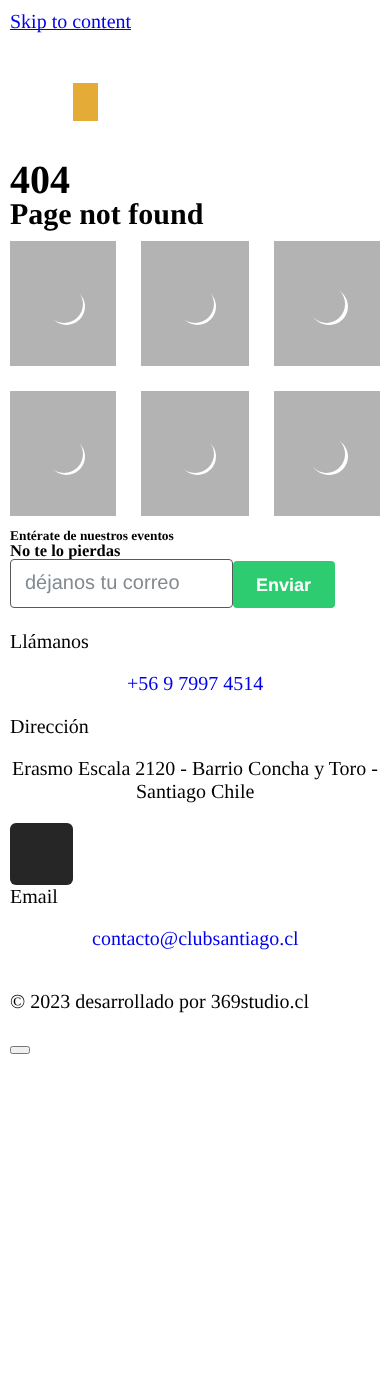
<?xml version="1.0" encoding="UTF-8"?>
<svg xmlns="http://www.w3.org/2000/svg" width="389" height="1391">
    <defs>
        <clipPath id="clip1"><path d="M 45 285 H 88 V 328 H 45 Z M 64 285 C 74.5 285 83 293.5 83 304 C 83 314.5 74.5 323 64 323 C 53.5 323 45 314.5 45 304 C 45 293.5 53.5 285 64 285 Z" clip-rule="evenodd"/></clipPath>
        <filter id="blur1" x="-50%" y="-200%" width="200%" height="500%"><feGaussianBlur stdDeviation="0.5"/></filter>
        <clipPath id="clip2"><path d="M 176 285 H 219 V 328 H 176 Z M 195 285 C 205.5 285 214 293.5 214 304 C 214 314.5 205.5 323 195 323 C 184.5 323 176 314.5 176 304 C 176 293.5 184.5 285 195 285 Z" clip-rule="evenodd"/></clipPath>
        <clipPath id="clip3"><path d="M 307 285 H 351 V 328 H 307 Z M 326.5 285 C 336.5 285 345 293.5 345 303.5 V 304.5 C 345 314.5 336.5 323 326.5 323 C 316.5 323 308 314.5 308 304.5 V 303.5 C 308 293.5 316.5 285 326.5 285 Z" clip-rule="evenodd"/></clipPath>
        <clipPath id="clip4"><path d="M 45 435 H 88 V 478 H 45 Z M 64 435 C 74.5 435 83 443.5 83 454 C 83 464.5 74.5 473 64 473 C 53.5 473 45 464.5 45 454 C 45 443.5 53.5 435 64 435 Z" clip-rule="evenodd"/></clipPath>
        <clipPath id="clip5"><path d="M 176 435 H 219 V 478 H 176 Z M 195 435 C 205.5 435 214 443.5 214 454 C 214 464.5 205.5 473 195 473 C 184.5 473 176 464.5 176 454 C 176 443.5 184.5 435 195 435 Z" clip-rule="evenodd"/></clipPath>
        <clipPath id="clip6"><path d="M 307 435 H 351 V 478 H 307 Z M 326.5 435 C 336.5 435 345 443.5 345 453.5 V 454.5 C 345 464.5 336.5 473 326.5 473 C 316.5 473 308 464.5 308 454.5 V 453.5 C 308 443.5 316.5 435 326.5 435 Z" clip-rule="evenodd"/></clipPath>
    </defs>
    <rect width="100%" height="100%" fill="#FFFFFF"/>
    <rect x="10" y="29" width="121" height="1" fill="#0000EE"/>
    <text x="10" y="28" font-family="Liberation Serif" font-size="20" fill="#0000EE">Skip to content</text>
    <rect x="73" y="83" width="25" height="38" fill="#E4AB36"/>
    <text x="10" y="193" font-family="Liberation Serif" font-size="40" font-weight="700" fill="#000000">404</text>
    <text x="10" y="224" font-family="Liberation Serif" font-size="30" font-weight="700" fill="#000000">Page not found</text>
    <rect x="10" y="241" width="106" height="125" fill="#B3B3B3"/>
    <g clip-path="url(#clip1)">
        <rect x="48" y="288" width="37" height="37" rx="18.5" fill="#FFFFFF" filter="url(#blur1)"/>
    </g>
    <rect x="141" y="241" width="108" height="125" fill="#B3B3B3"/>
    <g clip-path="url(#clip2)">
        <rect x="179" y="288" width="37" height="37" rx="18.5" fill="#FFFFFF" filter="url(#blur1)"/>
    </g>
    <rect x="274" y="241" width="106" height="125" fill="#B3B3B3"/>
    <g clip-path="url(#clip3)">
        <rect x="310" y="288" width="38" height="37" rx="18.5" fill="#FFFFFF" filter="url(#blur1)"/>
    </g>
    <rect x="10" y="391" width="106" height="125" fill="#B3B3B3"/>
    <g clip-path="url(#clip4)">
        <rect x="48" y="438" width="37" height="37" rx="18.5" fill="#FFFFFF" filter="url(#blur1)"/>
    </g>
    <rect x="141" y="391" width="108" height="125" fill="#B3B3B3"/>
    <g clip-path="url(#clip5)">
        <rect x="179" y="438" width="37" height="37" rx="18.5" fill="#FFFFFF" filter="url(#blur1)"/>
    </g>
    <rect x="274" y="391" width="106" height="125" fill="#B3B3B3"/>
    <g clip-path="url(#clip6)">
        <rect x="310" y="438" width="38" height="37" rx="18.5" fill="#FFFFFF" filter="url(#blur1)"/>
    </g>
    <text x="10" y="540" font-family="Liberation Serif" font-size="13.4" font-weight="700" fill="#000000">Entérate de nuestros eventos</text>
    <text x="10" y="556" font-family="Liberation Serif" font-size="16.5" font-weight="700" fill="#000000">No te lo pierdas</text>
    <rect x="10.5" y="559.5" width="222" height="48" rx="3.5" fill="#FFFFFF" stroke="#55595C"/>
    <text x="25" y="589" font-family="Liberation Sans" font-size="20" fill="#818A91">déjanos tu correo</text>
    <rect x="233" y="561" width="102" height="47" rx="4" fill="#2ECC71"/>
    <text x="256" y="591" font-family="Liberation Sans" font-size="18" font-weight="700" fill="#FFFFFF">Enviar</text>
    <text x="10" y="648" font-family="Liberation Serif" font-size="20" fill="#000000">Llámanos</text>
    <text x="127" y="690" font-family="Liberation Serif" font-size="20" fill="#0000EE">+56 9 7997 4514</text>
    <text x="10" y="733" font-family="Liberation Serif" font-size="20" fill="#000000">Dirección</text>
    <text x="12" y="775" font-family="Liberation Serif" font-size="20" fill="#000000">Erasmo Escala 2120 - Barrio Concha y Toro -</text>
    <text x="136" y="798" font-family="Liberation Serif" font-size="20" fill="#000000">Santiago Chile</text>
    <rect x="10" y="823" width="63" height="62" rx="6" fill="#262626"/>
    <text x="10" y="903" font-family="Liberation Serif" font-size="20" fill="#000000">Email</text>
    <text x="92" y="945" font-family="Liberation Serif" font-size="20" fill="#0000EE">contacto@clubsantiago.cl</text>
    <text x="10" y="1008" font-family="Liberation Serif" font-size="20" fill="#000000">© 2023 desarrollado por 369studio.cl</text>
    <rect x="10.5" y="1046.5" width="19" height="7" rx="2" fill="#EFEFEF" stroke="#767676"/>
</svg>
